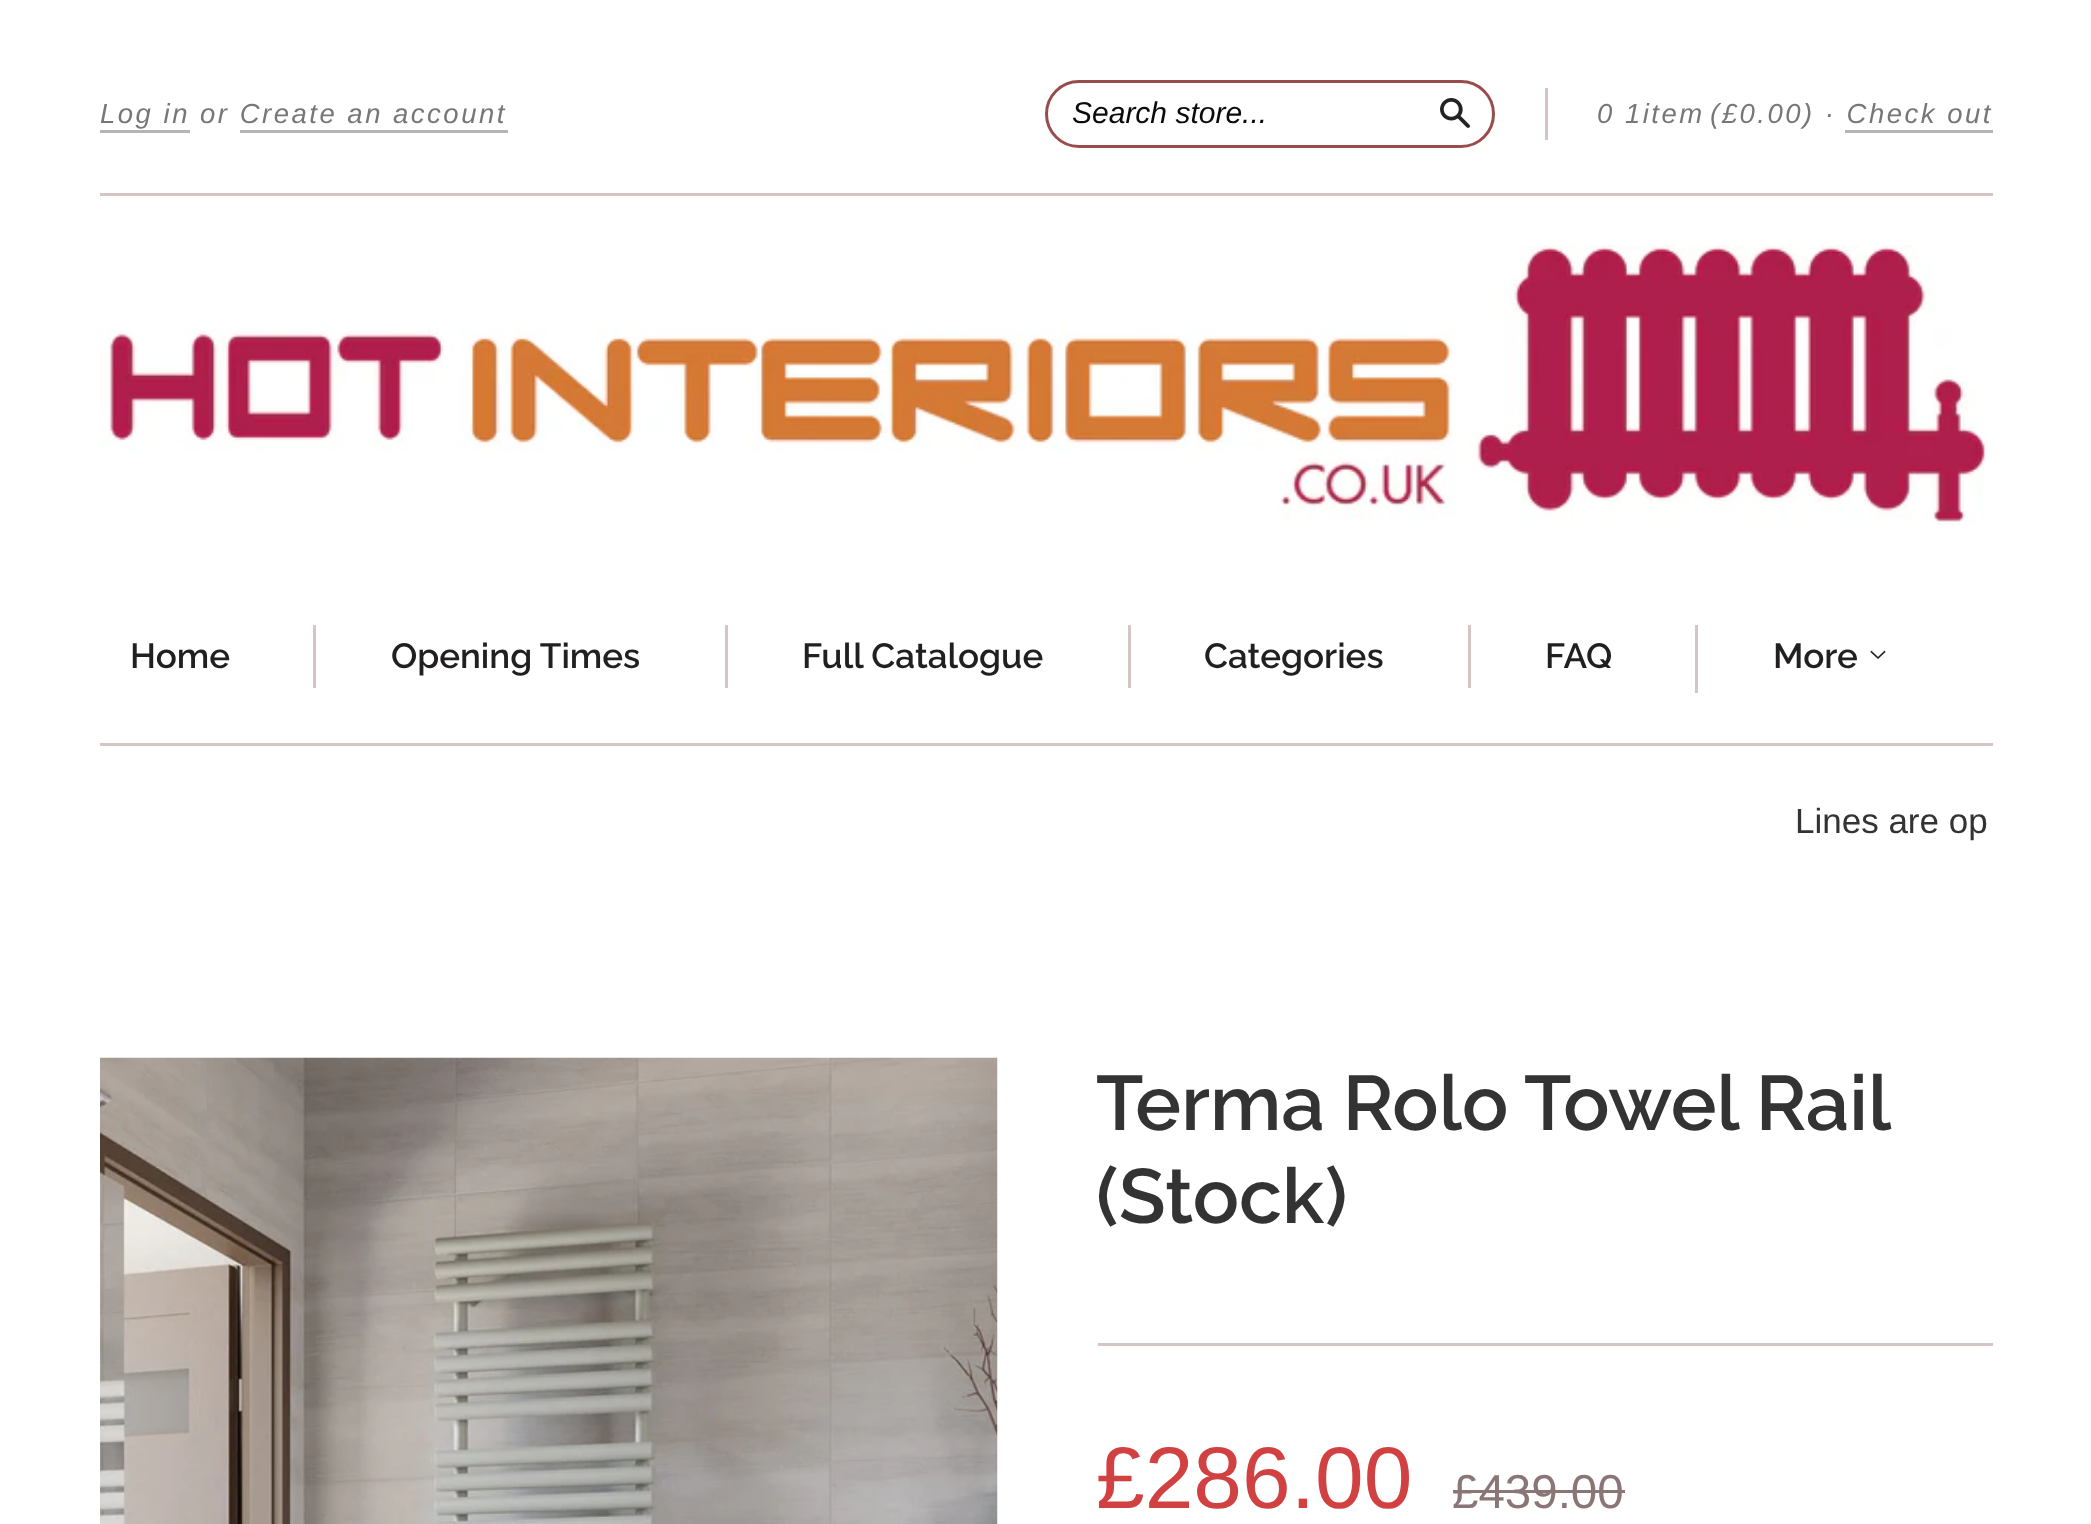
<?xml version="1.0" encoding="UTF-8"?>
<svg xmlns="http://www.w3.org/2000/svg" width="2091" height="1524">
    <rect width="100%" height="100%" fill="#FFFFFF"/>
    <rect x="100" y="743" width="1893" height="3" fill="#D6C5C5"/>
    <rect x="100" y="193" width="1893" height="3" fill="#D6C5C5"/>
    <text x="100" y="123" font-family="Liberation Sans" font-size="27.5" font-style="italic" letter-spacing="2.5" fill="#777777">Log in or Create an account</text>
    <rect x="100" y="130" width="90" height="3" fill="#B5B5B5"/>
    <rect x="240" y="130" width="268" height="3" fill="#B5B5B5"/>
    <rect x="1046.5" y="81.5" width="447" height="65" rx="32.5" fill="none" stroke="#994C4C" stroke-width="3"/>
    <text x="1072" y="123" font-family="Liberation Sans" font-size="30" font-style="italic" fill="#0A0A0A">Search store...</text>
    <image x="1440" y="98" width="30" height="30" href="img_01.png"/>
    <rect x="1545" y="88" width="3" height="52" fill="#D6C5C5"/>
    <text x="1597" y="123" font-family="Liberation Sans" font-size="27.5" font-style="italic" letter-spacing="2.5" fill="#777777">0 1item</text>
    <text x="1710" y="123" font-family="Liberation Sans" font-size="27.5" font-style="italic" letter-spacing="2.5" fill="#777777">(£0.00) · Check out</text>
    <rect x="1845" y="130" width="148" height="3" fill="#B5B5B5"/>
    <image x="100" y="245" width="1887" height="280" href="img_02.png"/>
    <text x="130" y="668" font-family="Raleway" font-size="35" font-weight="100" fill="#211F1F">Home</text>
    <rect x="313" y="625" width="3" height="63" fill="#D6C5C5"/>
    <text x="391" y="668" font-family="Raleway" font-size="35" font-weight="100" fill="#211F1F">Opening Times</text>
    <rect x="725" y="625" width="3" height="63" fill="#D6C5C5"/>
    <text x="802" y="668" font-family="Raleway" font-size="35" font-weight="100" fill="#211F1F">Full Catalogue</text>
    <rect x="1128" y="625" width="3" height="63" fill="#D6C5C5"/>
    <text x="1204" y="668" font-family="Raleway" font-size="35" font-weight="100" fill="#211F1F">Categories</text>
    <rect x="1468" y="625" width="3" height="63" fill="#D6C5C5"/>
    <text x="1545" y="668" font-family="Raleway" font-size="35" font-weight="100" fill="#211F1F">FAQ</text>
    <rect x="1695" y="625" width="3" height="68" fill="#D6C5C5"/>
    <text x="1773" y="668" font-family="Raleway" font-size="35" font-weight="100" fill="#211F1F">More</text>
    <image x="1870" y="650" width="16" height="9" href="img_03.png"/>
    <text x="1795" y="833" font-family="Liberation Sans" font-size="35" fill="#333333">Lines are op</text>
    <image x="100" y="1057" width="898" height="467" href="img_04.png"/>
    <text font-family="Raleway" font-size="77" font-weight="100" fill="#333333">
        <tspan x="1096" y="1130" word-spacing="-1">Terma Rolo Towel Rail</tspan>
        <tspan x="1096" y="1223">(Stock)</tspan>
    </text>
    <rect x="1098" y="1343" width="895" height="3" fill="#D6C5C5"/>
    <text x="1096" y="1508" font-family="Liberation Sans" font-size="87.5" fill="#D14141">£286.00</text>
    <text x="1452" y="1508" font-family="Liberation Sans" font-size="47.5" fill="#8A7676">£439.00</text>
    <rect x="1453" y="1490" width="172" height="3" fill="#8A7676"/>
</svg>
